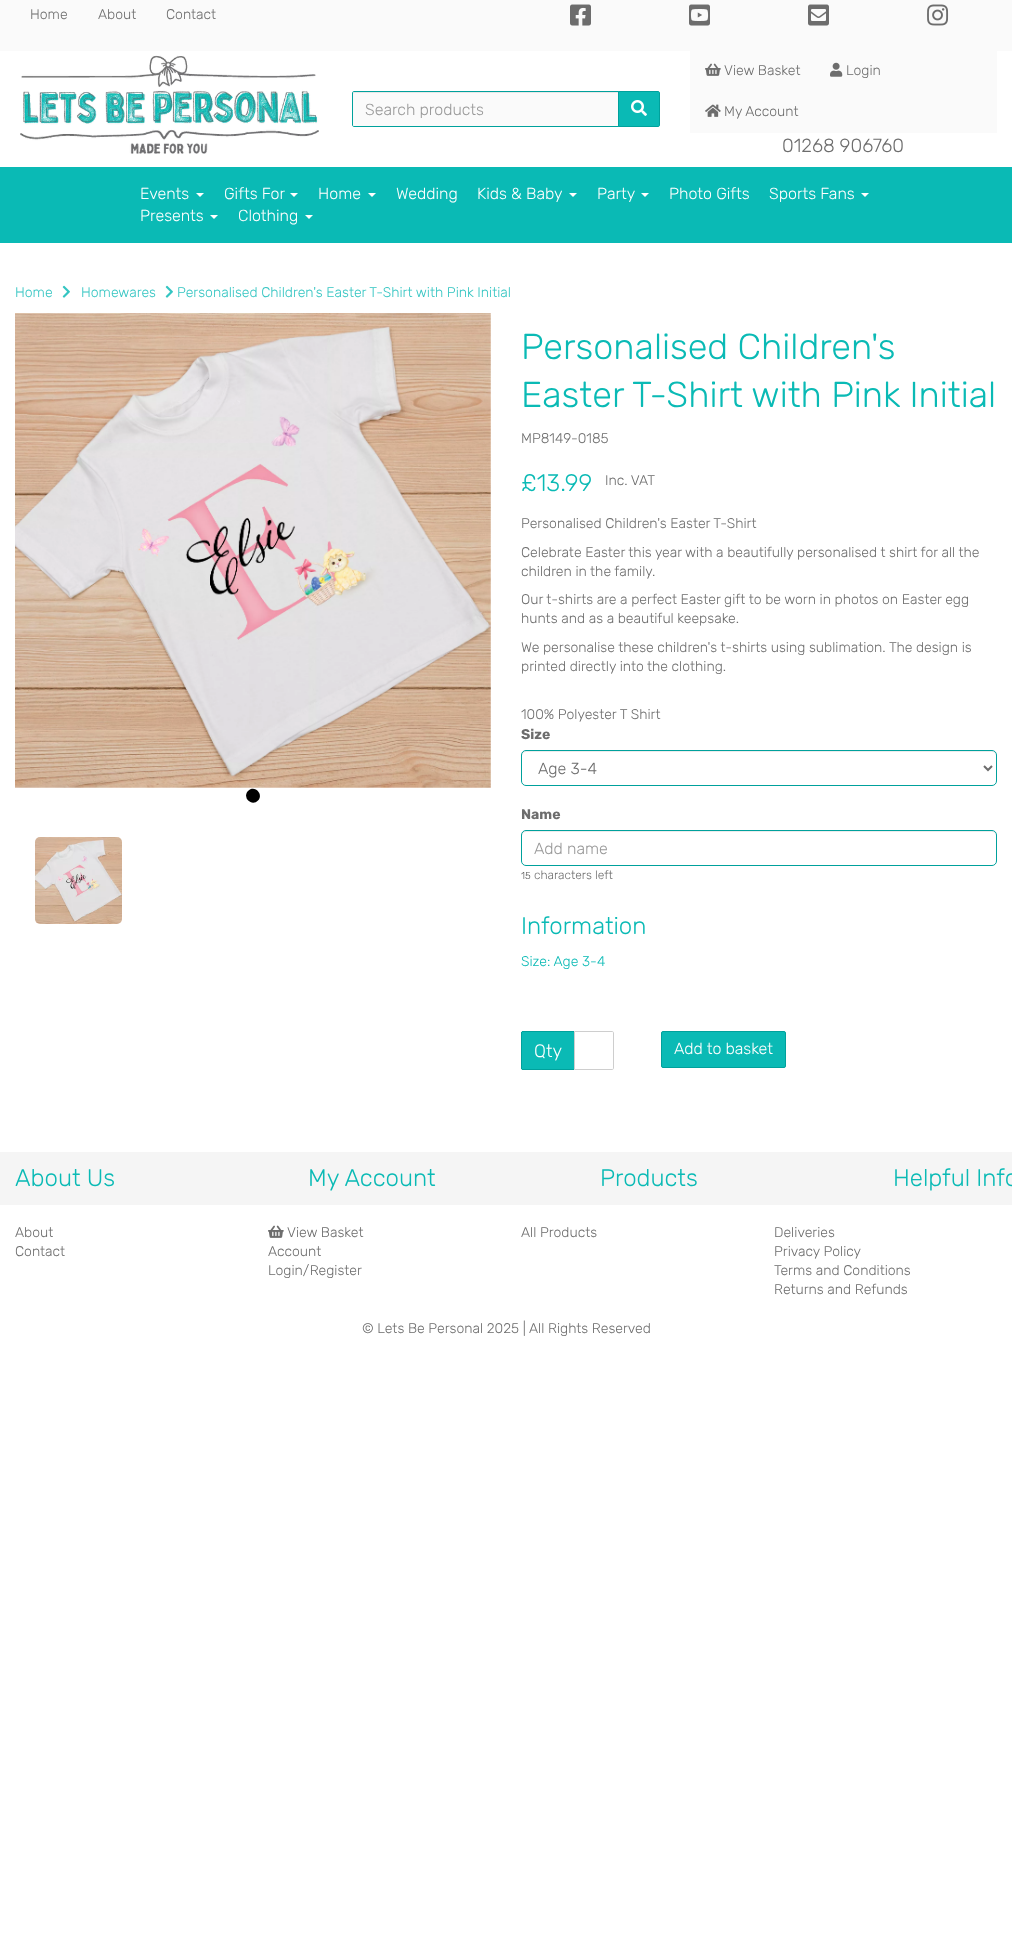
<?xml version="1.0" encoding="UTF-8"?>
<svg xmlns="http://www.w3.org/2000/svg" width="1012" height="1955">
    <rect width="100%" height="100%" fill="#FFFFFF"/>
    <rect x="0" y="0" width="1012" height="51" fill="#FAFAFA"/>
    <text x="30" y="19" font-family="Rubik" font-size="14" font-weight="300" fill="#6D6D6D">Home</text>
    <text x="98" y="19" font-family="Rubik" font-size="14" font-weight="300" fill="#6D6D6D">About</text>
    <text x="166" y="19" font-family="Rubik" font-size="14" font-weight="300" fill="#6D6D6D">Contact</text>
    <image x="570" y="4" width="21" height="22" href="img_01.png"/>
    <image x="689" y="4" width="21" height="22" href="img_02.png"/>
    <image x="808" y="4" width="21" height="22" href="img_03.png"/>
    <image x="927" y="4" width="22" height="22" href="img_04.png"/>
    <image x="20" y="55" width="299" height="99" href="img_05.png"/>
    <path d="M 354 91 H 619 V 127 H 354 C 353 127 352 126 352 125 V 93 C 352 92 353 91 354 91 Z" fill="#FAFAFA"/>
    <path d="M 354 93 H 618 V 92 H 354 H 353 V 94 Z" fill="#E7E7E7"/>
    <path d="M 354 91.5 H 618.5 V 126.5 H 354 C 353 126.5 352.5 126 352.5 125 V 93 C 352.5 92 353 91.5 354 91.5 Z" fill="none" stroke="#00A19C"/>
    <text x="365" y="115" font-family="Rubik" font-size="16" font-weight="300" fill="#999999">Search products</text>
    <path d="M 618.5 91.5 H 658 C 659 91.5 659.5 92 659.5 93 V 125 C 659.5 126 659 126.5 658 126.5 H 618.5 Z" fill="#0ABAB5" stroke="#00A19C"/>
    <image x="631" y="100" width="16" height="16" href="img_06.png"/>
    <rect x="690" y="51" width="307" height="82" fill="#FAFAFA"/>
    <image x="705" y="63" width="16" height="13" href="img_07.png"/>
    <text x="724" y="75" font-family="Rubik" font-size="14" font-weight="300" fill="#6D6D6D">View Basket</text>
    <image x="830" y="62" width="13" height="15" href="img_08.png"/>
    <text x="846" y="75" font-family="Rubik" font-size="14" font-weight="300" fill="#6D6D6D">Login</text>
    <image x="705" y="104" width="16" height="13" href="img_09.png"/>
    <text x="724" y="116" font-family="Rubik" font-size="14" font-weight="300" fill="#6D6D6D">My Account</text>
    <text x="782" y="152" font-family="Rubik" font-size="19" font-weight="300" fill="#6D6D6D">01268 906760</text>
    <rect x="0" y="167" width="1012" height="76" fill="#0ABAB5"/>
    <text x="140" y="199" font-family="Rubik" font-size="16" font-weight="300" fill="#FFFFFF">Events</text>
    <path d="M 196 193 H 204 L 200 197 Z" fill="#FFFFFF"/>
    <text x="224" y="199" font-family="Rubik" font-size="16" font-weight="300" fill="#FFFFFF">Gifts For</text>
    <path d="M 290 193 H 298 L 294 197 Z" fill="#FFFFFF"/>
    <text x="318" y="199" font-family="Rubik" font-size="16" font-weight="300" fill="#FFFFFF">Home</text>
    <path d="M 368 193 H 376 L 372 197 Z" fill="#FFFFFF"/>
    <text x="396" y="199" font-family="Rubik" font-size="16" font-weight="300" fill="#FFFFFF">Wedding</text>
    <text x="477" y="199" font-family="Rubik" font-size="16" font-weight="300" fill="#FFFFFF">Kids &amp; Baby</text>
    <path d="M 569 193 H 577 L 573 197 Z" fill="#FFFFFF"/>
    <text x="597" y="199" font-family="Rubik" font-size="16" font-weight="300" fill="#FFFFFF">Party</text>
    <path d="M 641 193 H 649 L 645 197 Z" fill="#FFFFFF"/>
    <text x="669" y="199" font-family="Rubik" font-size="16" font-weight="300" fill="#FFFFFF">Photo Gifts</text>
    <text x="769" y="199" font-family="Rubik" font-size="16" font-weight="300" fill="#FFFFFF">Sports Fans</text>
    <path d="M 861 193 H 869 L 865 197 Z" fill="#FFFFFF"/>
    <text x="140" y="221" font-family="Rubik" font-size="16" font-weight="300" fill="#FFFFFF">Presents</text>
    <path d="M 210 215 H 218 L 214 219 Z" fill="#FFFFFF"/>
    <text x="238" y="221" font-family="Rubik" font-size="16" font-weight="300" fill="#FFFFFF">Clothing</text>
    <path d="M 305 215 H 313 L 309 219 Z" fill="#FFFFFF"/>
    <text x="15" y="297" font-family="Rubik" font-size="14" font-weight="300" fill="#34C5C2">Home</text>
    <image x="62" y="285" width="8" height="13" href="img_10.png"/>
    <text x="81" y="297" font-family="Rubik" font-size="14" font-weight="300" fill="#34C5C2">Homewares</text>
    <image x="165" y="285" width="8" height="13" href="img_10.png"/>
    <text x="177" y="297" font-family="Rubik" font-size="14" font-weight="300" fill="#34C5C2">Personalised Children's Easter T-Shirt with Pink Initial</text>
    <image x="15" y="313" width="476" height="475" href="img_11.png"/>
    <path d="M 248 791 C 254.5 784.5 264 794 258 800.5 C 251.5 807 242 797.5 248 791 Z" fill="#000000"/>
    <image x="35" y="837" width="87" height="87" href="img_12.png"/>
    <text font-family="Rubik" font-size="36" font-weight="300" fill="#0ABAB5">
        <tspan x="521" y="359">Personalised Children's</tspan>
        <tspan x="521" y="407">Easter T-Shirt with Pink Initial</tspan>
    </text>
    <text x="521" y="443" font-family="Rubik" font-size="14" font-weight="300" fill="#6D6D6D">MP8149-0185</text>
    <text x="521" y="491" font-family="Rubik" font-size="24" font-weight="300" fill="#0ABAB5">£13.99</text>
    <text x="605" y="485" font-family="Rubik" font-size="14" font-weight="300" fill="#6D6D6D">Inc. VAT</text>
    <text x="521" y="528" font-family="Rubik" font-size="14" font-weight="300" fill="#6D6D6D">Personalised Children's Easter T-Shirt</text>
    <text font-family="Rubik" font-size="14" font-weight="300" fill="#6D6D6D">
        <tspan x="521" y="557">Celebrate Easter this year with a beautifully personalised t shirt for all the</tspan>
        <tspan x="521" y="576">children in the family.</tspan>
    </text>
    <text font-family="Rubik" font-size="14" font-weight="300" fill="#6D6D6D">
        <tspan x="521" y="604">Our t-shirts are a perfect Easter gift to be worn in photos on Easter egg</tspan>
        <tspan x="521" y="623">hunts and as a beautiful keepsake.</tspan>
    </text>
    <text font-family="Rubik" font-size="14" font-weight="300" fill="#6D6D6D">
        <tspan x="521" y="652">We personalise these children's t-shirts using sublimation. The design is</tspan>
        <tspan x="521" y="671">printed directly into the clothing.</tspan>
    </text>
    <text x="521" y="719" font-family="Rubik" font-size="14" font-weight="300" fill="#6D6D6D">100% Polyester T Shirt</text>
    <text x="521" y="739" font-family="Rubik" font-size="14" font-weight="700" fill="#6D6D6D">Size</text>
    <path d="M 526 752 H 992 C 994 752 996 754 996 756 C 996 753 995 751 992 751 H 526 C 523 751 522 753 522 756 C 522 754 524 752 526 752 Z" fill="#ECECEC"/>
    <rect x="521.5" y="750.5" width="475" height="35" rx="4.5" fill="none" stroke="#00A19C"/>
    <path d="M 984 766 L 988 770 L 992 766" fill="none" stroke="#6D6D6D" stroke-width="2"/>
    <text x="538" y="774" font-family="Rubik" font-size="16" font-weight="300" fill="#6D6D6D">Age 3-4</text>
    <text x="521" y="819" font-family="Rubik" font-size="14" font-weight="700" fill="#6D6D6D">Name</text>
    <path d="M 526 832 H 992 C 994 832 996 834 996 836 C 996 833 995 831 992 831 H 526 C 523 831 522 833 522 836 C 522 834 524 832 526 832 Z" fill="#ECECEC"/>
    <rect x="521.5" y="830.5" width="475" height="35" rx="4.5" fill="none" stroke="#00A19C"/>
    <text x="534" y="854" font-family="Rubik" font-size="16" font-weight="300" fill="#999999">Add name</text>
    <text x="521" y="879" font-family="Rubik" font-size="10" font-weight="300" fill="#555555">15</text>
    <text x="534" y="879" font-family="Rubik" font-size="12" font-weight="300" fill="#6D6D6D">characters left</text>
    <text x="521" y="934" font-family="Rubik" font-size="24" font-weight="300" fill="#0ABAB5">Information</text>
    <text x="521" y="966" font-family="Rubik" font-size="14" font-weight="300" fill="#0ABAB5">Size: Age 3-4</text>
    <path d="M 523 1031 H 574 V 1070 H 523 C 522 1070 521 1069 521 1068 V 1033 C 521 1032 522 1031 523 1031 Z" fill="#0ABAB5"/>
    <rect x="522" y="1031" width="52" height="1" fill="#00A19C"/>
    <rect x="522" y="1069" width="52" height="1" fill="#00A19C"/>
    <rect x="521" y="1032" width="1" height="37" fill="#00A19C"/>
    <text x="534" y="1057" font-family="Rubik" font-size="18" font-weight="300" fill="#FFFFFF">Qty</text>
    <path d="M 574.5 1031.5 H 612 C 613 1031.5 613.5 1032 613.5 1033 V 1068 C 613.5 1069 613 1069.5 612 1069.5 H 574.5 Z" fill="none" stroke="#CECECE"/>
    <rect x="661.5" y="1031.5" width="124" height="36" rx="1.5" fill="#0ABAB5" stroke="#00A19C"/>
    <text x="674" y="1054" font-family="Rubik" font-size="16" font-weight="300" fill="#FFFFFF">Add to basket</text>
    <rect x="0" y="1152" width="1012" height="53" fill="#F5F5F5"/>
    <text x="15" y="1186" font-family="Rubik" font-size="24" font-weight="300" fill="#0ABAB5">About Us</text>
    <text x="308" y="1186" font-family="Rubik" font-size="24" font-weight="300" fill="#0ABAB5">My Account</text>
    <text x="600" y="1186" font-family="Rubik" font-size="24" font-weight="300" fill="#0ABAB5">Products</text>
    <text x="893" y="1186" font-family="Rubik" font-size="24" font-weight="300" fill="#0ABAB5">Helpful Info</text>
    <text font-family="Rubik" font-size="14" font-weight="300" fill="#6D6D6D">
        <tspan x="15" y="1237">About</tspan>
        <tspan x="15" y="1256">Contact</tspan>
    </text>
    <image x="268" y="1225" width="16" height="13" href="img_13.png"/>
    <text x="287" y="1237" font-family="Rubik" font-size="14" font-weight="300" fill="#6D6D6D">View Basket</text>
    <text font-family="Rubik" font-size="14" font-weight="300" fill="#6D6D6D">
        <tspan x="268" y="1256">Account</tspan>
        <tspan x="268" y="1275">Login/Register</tspan>
    </text>
    <text x="521" y="1237" font-family="Rubik" font-size="14" font-weight="300" fill="#6D6D6D">All Products</text>
    <text font-family="Rubik" font-size="14" font-weight="300" fill="#6D6D6D">
        <tspan x="774" y="1237">Deliveries</tspan>
        <tspan x="774" y="1256">Privacy Policy</tspan>
        <tspan x="774" y="1275">Terms and Conditions</tspan>
        <tspan x="774" y="1294">Returns and Refunds</tspan>
    </text>
    <text x="362" y="1333" font-family="Rubik" font-size="14" font-weight="300" fill="#6D6D6D">© Lets Be Personal 2025 | All Rights Reserved</text>
</svg>
